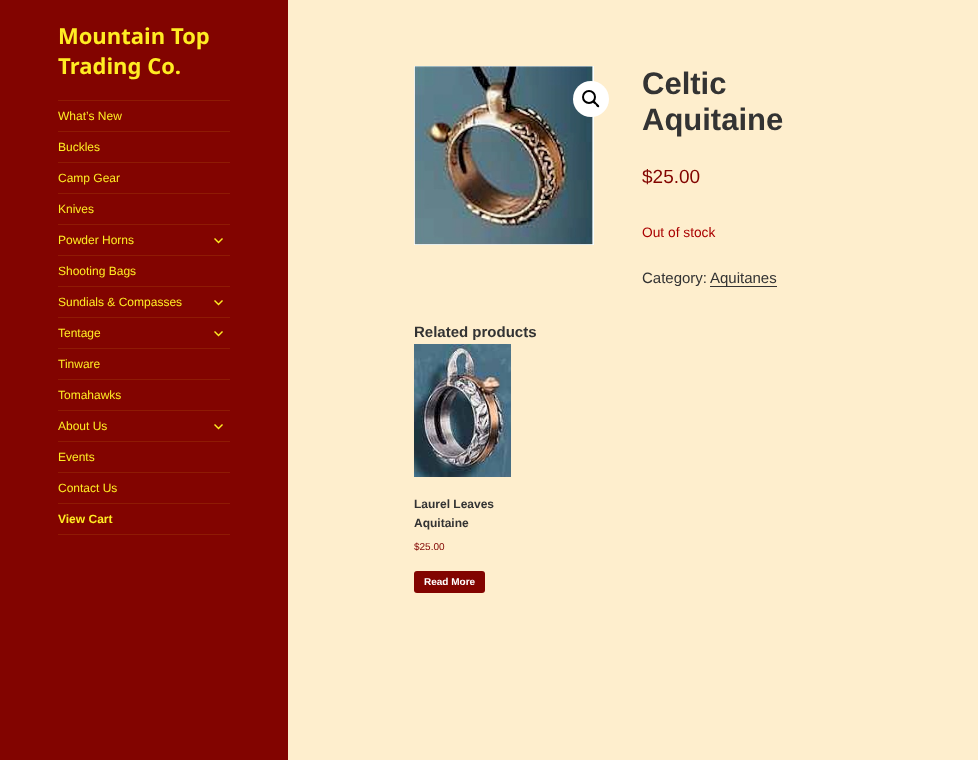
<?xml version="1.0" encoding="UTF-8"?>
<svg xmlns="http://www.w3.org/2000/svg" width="978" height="760">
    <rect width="100%" height="100%" fill="#FEEECD"/>
    <rect x="0" y="0" width="288" height="760" fill="#820400"/>
    <text font-family="Noto Sans" font-size="22" font-weight="700" fill="#FFEC23">
        <tspan x="58" y="44">Mountain Top</tspan>
        <tspan x="58" y="74">Trading Co.</tspan>
    </text>
    <rect x="58" y="100" width="172" height="1" fill="#8F1B04"/>
    <rect x="58" y="534" width="172" height="1" fill="#8F1B04"/>
    <text x="58" y="120" font-family="Liberation Sans" font-size="12" fill="#FFEC23">What’s New</text>
    <rect x="58" y="131" width="172" height="1" fill="#8F1B04"/>
    <text x="58" y="151" font-family="Liberation Sans" font-size="12" fill="#FFEC23">Buckles</text>
    <rect x="58" y="162" width="172" height="1" fill="#8F1B04"/>
    <text x="58" y="182" font-family="Liberation Sans" font-size="12" fill="#FFEC23">Camp Gear</text>
    <rect x="58" y="193" width="172" height="1" fill="#8F1B04"/>
    <text x="58" y="213" font-family="Liberation Sans" font-size="12" fill="#FFEC23">Knives</text>
    <rect x="58" y="224" width="172" height="1" fill="#8F1B04"/>
    <text x="58" y="244" font-family="Liberation Sans" font-size="12" fill="#FFEC23">Powder Horns</text>
    <image x="214" y="238" width="9" height="6" href="img_01.png"/>
    <rect x="58" y="255" width="172" height="1" fill="#8F1B04"/>
    <text x="58" y="275" font-family="Liberation Sans" font-size="12" fill="#FFEC23">Shooting Bags</text>
    <rect x="58" y="286" width="172" height="1" fill="#8F1B04"/>
    <text x="58" y="306" font-family="Liberation Sans" font-size="12" fill="#FFEC23">Sundials &amp; Compasses</text>
    <image x="214" y="300" width="9" height="6" href="img_01.png"/>
    <rect x="58" y="317" width="172" height="1" fill="#8F1B04"/>
    <text x="58" y="337" font-family="Liberation Sans" font-size="12" fill="#FFEC23">Tentage</text>
    <image x="214" y="331" width="9" height="6" href="img_01.png"/>
    <rect x="58" y="348" width="172" height="1" fill="#8F1B04"/>
    <text x="58" y="368" font-family="Liberation Sans" font-size="12" fill="#FFEC23">Tinware</text>
    <rect x="58" y="379" width="172" height="1" fill="#8F1B04"/>
    <text x="58" y="399" font-family="Liberation Sans" font-size="12" fill="#FFEC23">Tomahawks</text>
    <rect x="58" y="410" width="172" height="1" fill="#8F1B04"/>
    <text x="58" y="430" font-family="Liberation Sans" font-size="12" fill="#FFEC23">About Us</text>
    <image x="214" y="424" width="9" height="6" href="img_01.png"/>
    <rect x="58" y="441" width="172" height="1" fill="#8F1B04"/>
    <text x="58" y="461" font-family="Liberation Sans" font-size="12" fill="#FFEC23">Events</text>
    <rect x="58" y="472" width="172" height="1" fill="#8F1B04"/>
    <text x="58" y="492" font-family="Liberation Sans" font-size="12" fill="#FFEC23">Contact Us</text>
    <rect x="58" y="503" width="172" height="1" fill="#8F1B04"/>
    <text x="58" y="523" font-family="Liberation Sans" font-size="12" font-weight="700" fill="#FFEC23">View Cart</text>
    <image x="414" y="66" width="180" height="179" href="img_02.png"/>
    <circle cx="591" cy="99" r="18" fill="#FFFFFF"/>
    <circle cx="589" cy="97" r="6" fill="none" stroke="#000000" stroke-width="2"/>
    <path d="M 593 101 C 594.5 100 596 102.5 597 103.5 C 597.5 104 600 105.5 599 107 C 597.5 108 596 105.5 595.5 104.5 C 594.5 104 592 102.5 593 101 Z" fill="#000000"/>
    <text font-family="Liberation Sans" font-size="31" font-weight="700" fill="#333333">
        <tspan x="642" y="94">Celtic</tspan>
        <tspan x="642" y="130">Aquitaine</tspan>
    </text>
    <text x="642" y="183" font-family="Liberation Sans" font-size="19" fill="#820400">$25.00</text>
    <text x="642" y="237" font-family="Liberation Sans" font-size="13.75" fill="#AA0000">Out of stock</text>
    <text x="642" y="283" font-family="Liberation Sans" font-size="15" fill="#333333">Category:</text>
    <rect x="710" y="286" width="67" height="1" fill="#333333"/>
    <text x="710" y="283" font-family="Liberation Sans" font-size="15" fill="#333333">Aquitanes</text>
    <text x="414" y="337" font-family="Liberation Sans" font-size="15" font-weight="700" fill="#333333">Related products</text>
    <image x="414" y="344" width="97" height="133" href="img_03.png"/>
    <text font-family="Liberation Sans" font-size="12" font-weight="700" fill="#333333">
        <tspan x="414" y="508">Laurel Leaves</tspan>
        <tspan x="414" y="527">Aquitaine</tspan>
    </text>
    <text x="414" y="550" font-family="Liberation Sans" font-size="10" fill="#820400">$25.00</text>
    <rect x="414" y="571" width="71" height="22" rx="3" fill="#820400"/>
    <text x="424" y="585" font-family="Liberation Sans" font-size="10" font-weight="700" fill="#FFFFFF">Read More</text>
</svg>
